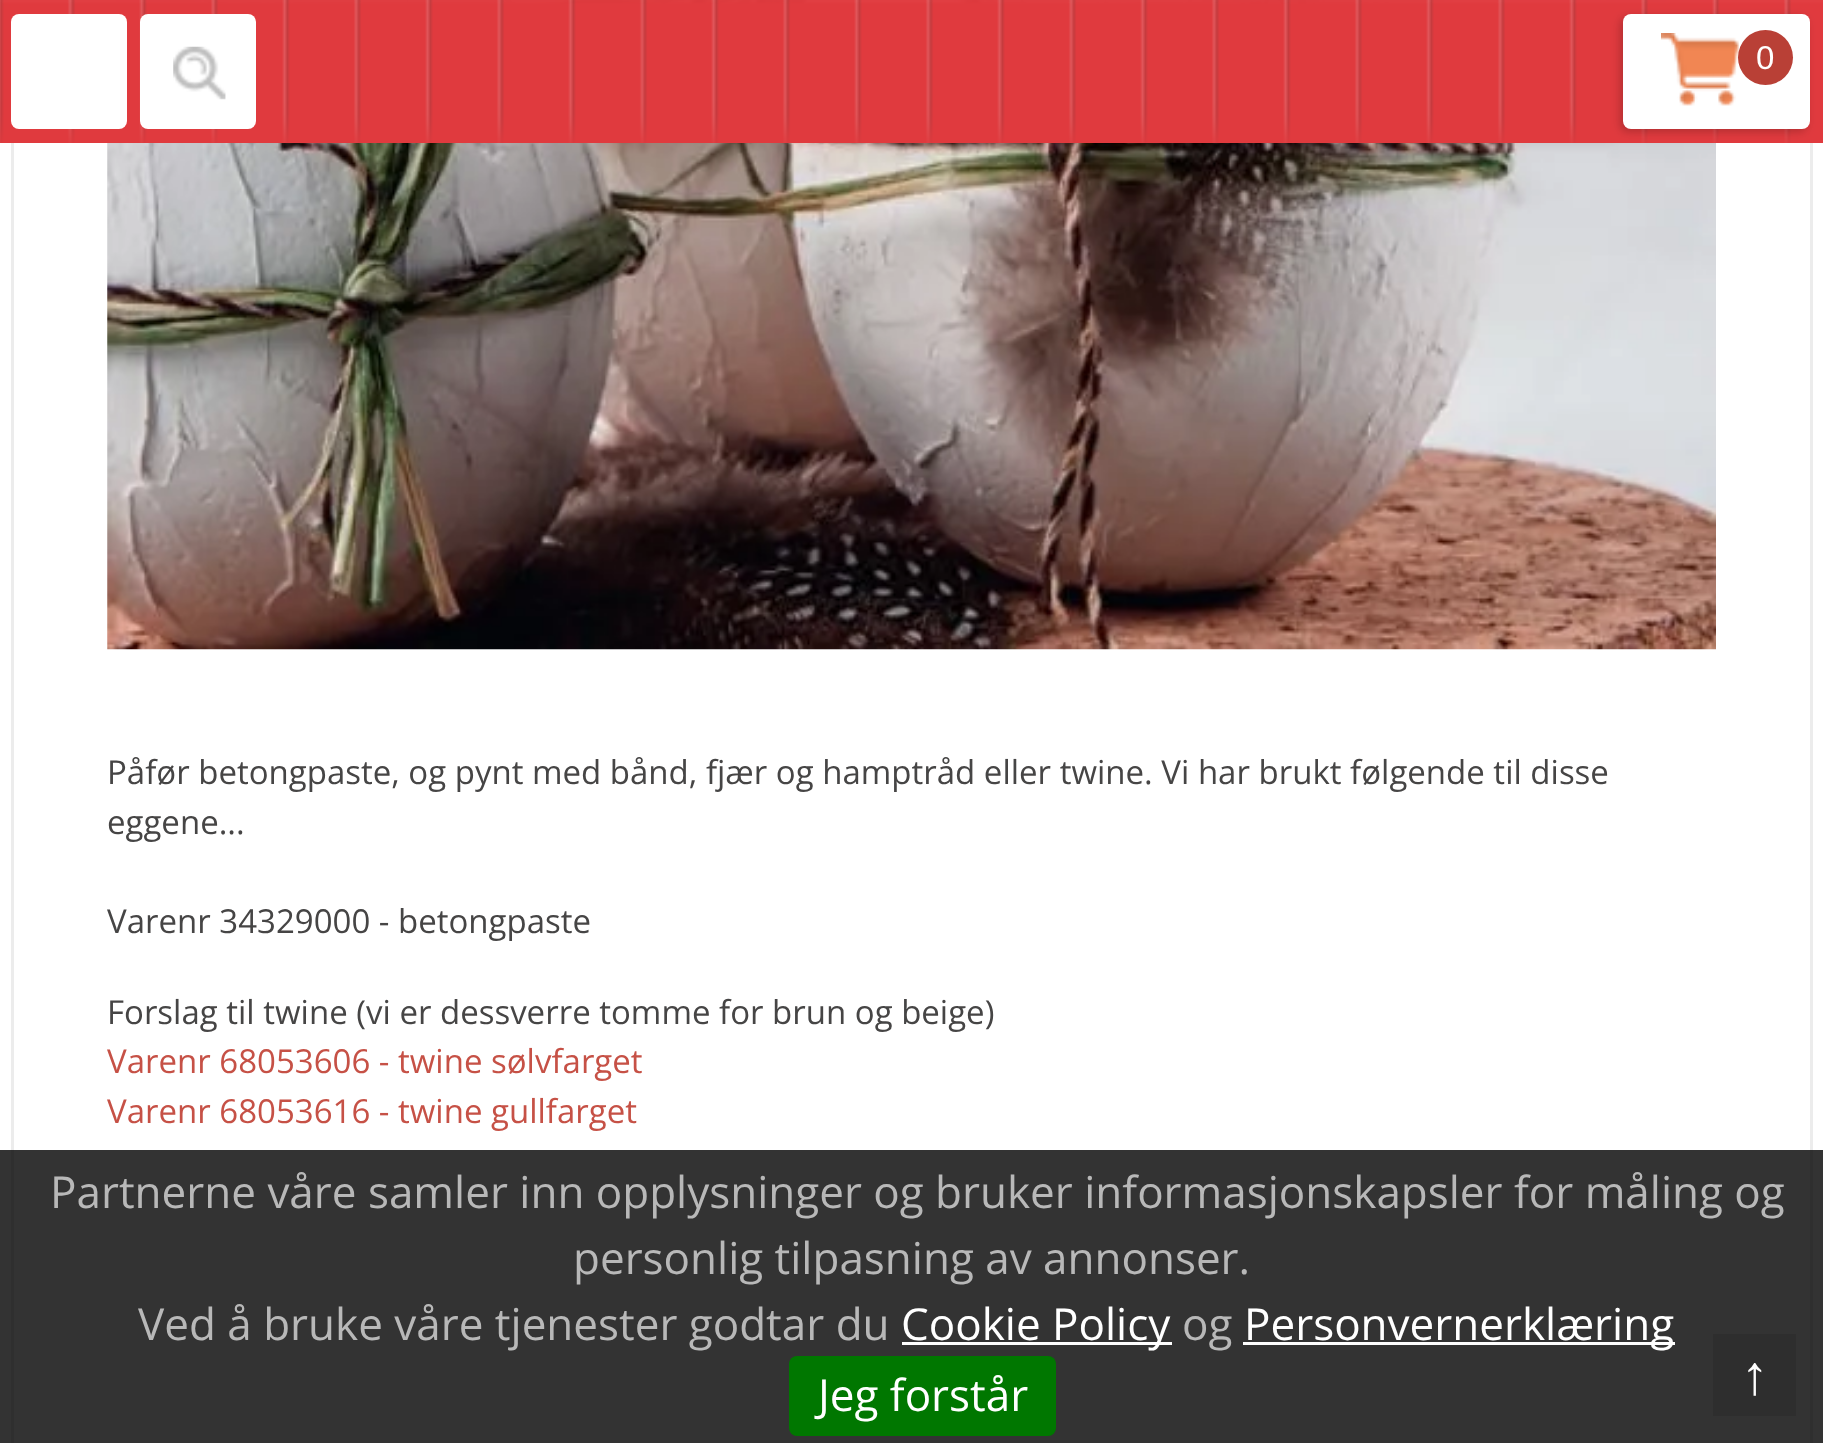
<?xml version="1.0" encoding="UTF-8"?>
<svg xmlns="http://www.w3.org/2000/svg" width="1823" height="1443">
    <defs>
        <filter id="blur1" x="-50%" y="-200%" width="200%" height="500%"><feGaussianBlur stdDeviation="4"/></filter>
    </defs>
    <rect width="100%" height="100%" fill="#FFFFFF"/>
    <rect x="1810" y="0" width="3" height="1443" fill="#ECECEC"/>
    <rect x="11" y="0" width="3" height="1443" fill="#ECECEC"/>
    <image x="107" y="0" width="1609" height="650" href="img_04.png"/>
    <image x="0" y="0" width="1823" height="143" href="img_01.png"/>
    <rect x="11" y="14" width="116" height="115" rx="8" fill="#FFFFFF"/>
    <rect x="140" y="14" width="116" height="115" rx="8" fill="#FFFFFF"/>
    <image x="173" y="46" width="53" height="54" href="img_02.png"/>
    <rect x="1620" y="17" width="187" height="115" rx="8" fill="#000000" fill-opacity="0.2" filter="url(#blur1)"/>
    <rect x="1623" y="14" width="187" height="115" rx="8" fill="#FFFFFF"/>
    <image x="1661" y="33" width="78" height="73" href="img_03.png"/>
    <circle cx="1765.5" cy="57.5" r="27.5" fill="#B94036"/>
    <text x="1756" y="69" font-family="Liberation Sans" font-size="33" fill="#FFFFFF">0</text>
    <text font-family="Open Sans" font-size="33" fill="#464545">
        <tspan x="107" y="784">Påfør betongpaste, og pynt med bånd, fjær og hamptråd eller twine. Vi har brukt følgende til disse</tspan>
        <tspan x="107" y="834">eggene...</tspan>
    </text>
    <text x="107" y="933" font-family="Open Sans" font-size="33" fill="#464545">Varenr 34329000 - betongpaste</text>
    <text x="107" y="1024" font-family="Open Sans" font-size="33" fill="#464545">Forslag til twine (vi er dessverre tomme for brun og beige)</text>
    <text font-family="Open Sans" font-size="33" fill="#C65146">
        <tspan x="107" y="1073">Varenr 68053606 - twine sølvfarget</tspan>
        <tspan x="107" y="1123">Varenr 68053616 - twine gullfarget</tspan>
    </text>
    <rect x="0" y="1150" width="1823" height="293" fill="#000000" fill-opacity="0.8"/>
    <rect x="1713" y="1334" width="83" height="82" fill="#2E2E2E"/>
    <text x="1741" y="1394" font-family="Liberation Sans" font-size="55" fill="#FFFFFF">↑</text>
    <text x="50" y="1208" font-family="Open Sans" font-size="44" fill="#B8B8B8">Partnerne våre samler inn opplysninger og bruker informasjonskapsler for måling og</text>
    <text x="573" y="1274" font-family="Open Sans" font-size="44" fill="#B8B8B8">personlig tilpasning av annonser.</text>
    <text x="138" y="1340" font-family="Open Sans" font-size="44" fill="#B8B8B8">Ved å bruke våre tjenester godtar du</text>
    <rect x="902" y="1342" width="270" height="3" fill="#FFFFFF"/>
    <text x="901" y="1340" font-family="Open Sans" font-size="44" fill="#FFFFFF">Cookie Policy</text>
    <text x="1182" y="1340" font-family="Open Sans" font-size="44" fill="#B8B8B8">og</text>
    <rect x="1243" y="1342" width="432" height="3" fill="#FFFFFF"/>
    <text x="1244" y="1340" font-family="Open Sans" font-size="44" fill="#FFFFFF">Personvernerklæring</text>
    <rect x="789" y="1356" width="267" height="80" rx="8" fill="#007700"/>
    <text x="818" y="1411" font-family="Open Sans" font-size="44" fill="#FFFFFF">Jeg forstår</text>
</svg>
